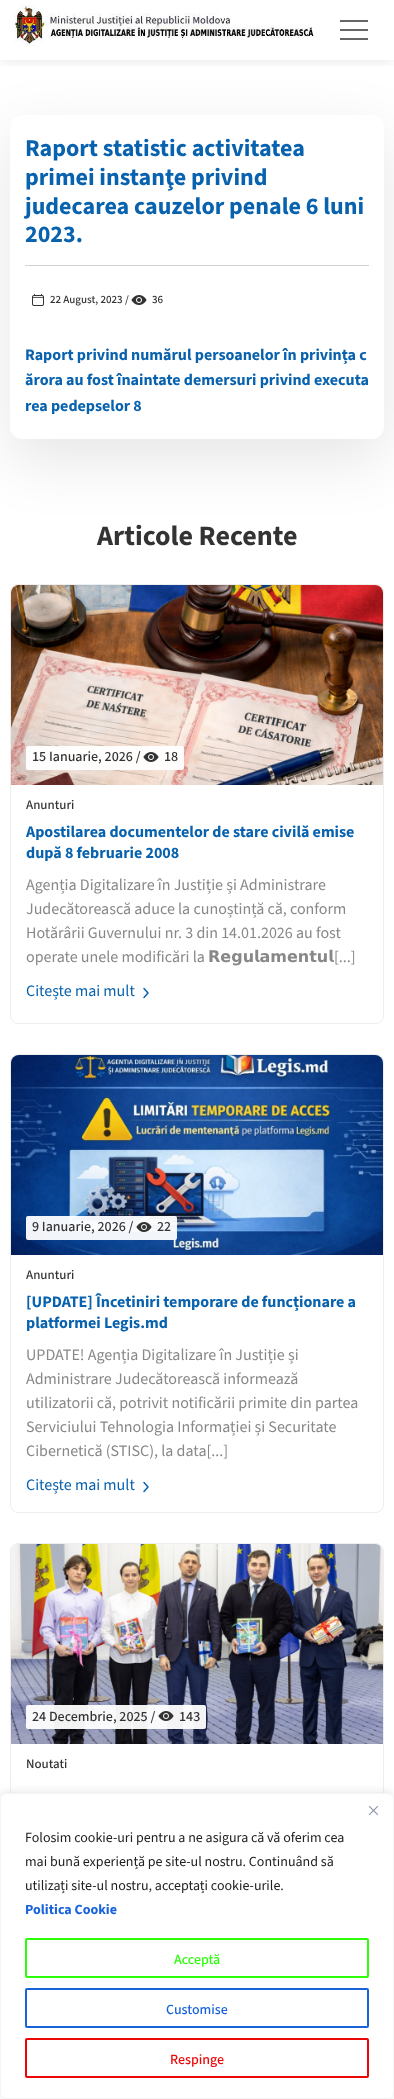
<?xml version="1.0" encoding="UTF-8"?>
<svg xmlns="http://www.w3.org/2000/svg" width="394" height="2099">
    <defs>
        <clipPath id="clip1"><rect x="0" y="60" width="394" height="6"/></clipPath>
        <filter id="blur1" x="-50%" y="-200%" width="200%" height="500%"><feGaussianBlur stdDeviation="7.5"/></filter>
        <clipPath id="clip2"><path d="M 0 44 H 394 V 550 H 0 Z M 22 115 H 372 C 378.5 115 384 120.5 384 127 V 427 C 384 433.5 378.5 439 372 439 H 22 C 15.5 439 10 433.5 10 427 V 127 C 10 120.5 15.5 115 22 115 Z" clip-rule="evenodd"/></clipPath>
        <filter id="blur2" x="-50%" y="-200%" width="200%" height="500%"><feGaussianBlur stdDeviation="30"/></filter>
        <filter id="blur3" x="-50%" y="-200%" width="200%" height="500%"><feGaussianBlur stdDeviation="5"/></filter>
    </defs>
    <rect width="100%" height="100%" fill="#FFFFFF"/>
    <g clip-path="url(#clip1)">
        <rect x="0" y="0" width="394" height="60" fill="#000000" fill-opacity="0.1" filter="url(#blur1)"/>
    </g>
    <g clip-path="url(#clip2)">
        <rect x="10" y="135" width="374" height="324" rx="12" fill="#000000" fill-opacity="0.1" filter="url(#blur2)"/>
    </g>
    <image x="12" y="5" width="305" height="41" href="img_01.png"/>
    <rect x="340" y="20" width="28" height="2" fill="#666666"/>
    <rect x="340" y="29" width="28" height="2" fill="#666666"/>
    <rect x="340" y="38" width="28" height="2" fill="#666666"/>
    <rect x="25" y="265" width="344" height="1" fill="#D3D3D3"/>
    <text font-family="'Source Sans 3'" font-size="24" font-weight="700" fill="#0862AE">
        <tspan x="25" y="156">Raport statistic activitatea</tspan>
        <tspan x="25" y="185">primei instanţe privind</tspan>
        <tspan x="25" y="214">judecarea cauzelor penale 6 luni</tspan>
        <tspan x="25" y="242">2023.</tspan>
    </text>
    <image x="31" y="293" width="14" height="13" href="img_02.png"/>
    <text x="50" y="303" font-family="'Source Sans 3'" font-size="11" font-weight="500" fill="#333333">22 August, 2023 /</text>
    <image x="131" y="295" width="16" height="10" href="img_03.png"/>
    <text x="152" y="303" font-family="'Source Sans 3'" font-size="11" font-weight="500" fill="#333333">36</text>
    <text font-family="'Source Sans 3'" font-size="16" font-weight="700" fill="#0862AE">
        <tspan x="25" y="360">Raport privind numărul persoanelor în privința c</tspan>
        <tspan x="25" y="385">ărora au fost înaintate demersuri privind executa</tspan>
        <tspan x="25" y="411">rea pedepselor 8</tspan>
    </text>
    <text x="97" y="545" font-family="'Source Sans 3'" font-size="28" font-weight="700" fill="#333333">Articole Recente</text>
    <rect x="10.5" y="584.5" width="373" height="439" rx="7.5" fill="none" stroke="#EEEEEE"/>
    <image x="11" y="585" width="372" height="200" href="img_04.png"/>
    <rect x="26" y="746" width="158" height="24" rx="2" fill="#FFFFFF" fill-opacity="0.95"/>
    <text x="32" y="761" font-family="'Source Sans 3'" font-size="14" font-weight="500" fill="#333333">15 Ianuarie, 2026 /</text>
    <image x="143" y="752" width="16" height="10" href="img_05.png"/>
    <text x="164" y="761" font-family="'Source Sans 3'" font-size="14" font-weight="500" fill="#333333">18</text>
    <text x="26" y="809" font-family="'Source Sans 3'" font-size="13" font-weight="500" fill="#333333">Anunturi</text>
    <text font-family="'Source Sans 3'" font-size="16" font-weight="700" fill="#0862AE">
        <tspan x="26" y="837">Apostilarea documentelor de stare civilă emise</tspan>
        <tspan x="26" y="858">după 8 februarie 2008</tspan>
    </text>
    <text font-family="'Source Sans 3'" font-size="16" fill="#888888">
        <tspan x="26" y="890">Agenția Digitalizare în Justiție și Administrare</tspan>
        <tspan x="26" y="914">Judecătorească aduce la cunoștință că, conform</tspan>
        <tspan x="26" y="938">Hotărârii Guvernului nr. 3 din 14.01.2026 au fost</tspan>
        <tspan x="26" y="962">operate unele modificări la</tspan>
    </text>
    <text x="208" y="962" font-family="DejaVu Sans" font-size="16" font-weight="700" fill="#888888">𝗥𝗲𝗴𝘂𝗹𝗮𝗺𝗲𝗻𝘁𝘂𝗹</text>
    <text x="334" y="962" font-family="'Source Sans 3'" font-size="16" fill="#888888">[...]</text>
    <text x="26" y="996" font-family="'Source Sans 3'" font-size="16" fill="#0862AE">Citește mai mult</text>
    <path d="M 144 988.5 L 148 993 L 144 997.5" fill="none" stroke="#0862AE" stroke-width="1.5" stroke-linecap="round" stroke-linejoin="round"/>
    <rect x="10.5" y="1054.5" width="373" height="458" rx="7.5" fill="none" stroke="#EEEEEE"/>
    <image x="11" y="1055" width="372" height="200" href="img_06.png"/>
    <rect x="26" y="1216" width="151" height="24" rx="2" fill="#FFFFFF" fill-opacity="0.95"/>
    <text x="32" y="1231" font-family="'Source Sans 3'" font-size="14" font-weight="500" fill="#333333">9 Ianuarie, 2026 /</text>
    <image x="136" y="1222" width="16" height="10" href="img_07.png"/>
    <text x="157" y="1231" font-family="'Source Sans 3'" font-size="14" font-weight="500" fill="#333333">22</text>
    <text x="26" y="1279" font-family="'Source Sans 3'" font-size="13" font-weight="500" fill="#333333">Anunturi</text>
    <text font-family="'Source Sans 3'" font-size="16" font-weight="700" fill="#0862AE">
        <tspan x="26" y="1307">[UPDATE] Încetiniri temporare de funcționare a</tspan>
        <tspan x="26" y="1328">platformei Legis.md</tspan>
    </text>
    <text font-family="'Source Sans 3'" font-size="16" fill="#888888">
        <tspan x="26" y="1360">UPDATE! Agenția Digitalizare în Justiție și</tspan>
        <tspan x="26" y="1384">Administrare Judecătorească informează</tspan>
        <tspan x="26" y="1408">utilizatorii că, potrivit notificării primite din partea</tspan>
        <tspan x="26" y="1432">Serviciului Tehnologia Informației și Securitate</tspan>
        <tspan x="26" y="1456">Cibernetică (STISC), la data[...]</tspan>
    </text>
    <text x="26" y="1490" font-family="'Source Sans 3'" font-size="16" fill="#0862AE">Citește mai mult</text>
    <path d="M 144 1482.5 L 148 1487 L 144 1491.5" fill="none" stroke="#0862AE" stroke-width="1.5" stroke-linecap="round" stroke-linejoin="round"/>
    <rect x="10.5" y="1543.5" width="373" height="456" rx="7.5" fill="none" stroke="#EEEEEE"/>
    <image x="11" y="1544" width="372" height="200" href="img_08.png"/>
    <rect x="26" y="1705" width="180" height="24" rx="2" fill="#FFFFFF" fill-opacity="0.95"/>
    <text x="32" y="1721" font-family="'Source Sans 3'" font-size="14" font-weight="500" fill="#333333">24 Decembrie, 2025 /</text>
    <image x="158" y="1711" width="16" height="10" href="img_09.png"/>
    <text x="179" y="1721" font-family="'Source Sans 3'" font-size="14" font-weight="500" fill="#333333">143</text>
    <text x="26" y="1768" font-family="'Source Sans 3'" font-size="13" font-weight="500" fill="#333333">Noutati</text>
    <rect x="0" y="1792" width="394" height="306" rx="6" fill="#ACABAB" fill-opacity="0.3" filter="url(#blur3)"/>
    <rect x="0.5" y="1793.5" width="393" height="305" rx="5.5" fill="#FFFFFF" stroke="#F4F4F4"/>
    <image x="369" y="1806" width="9" height="9" href="img_10.png"/>
    <text font-family="'Source Sans 3'" font-size="14" fill="#212121">
        <tspan x="25" y="1842">Folosim cookie-uri pentru a ne asigura că vă oferim cea</tspan>
        <tspan x="25" y="1866">mai bună experiență pe site-ul nostru. Continuând să</tspan>
        <tspan x="25" y="1890">utilizați site-ul nostru, acceptați cookie-urile.</tspan>
    </text>
    <text x="25" y="1914" font-family="'Source Sans 3'" font-size="14" font-weight="700" fill="#1863DC">Politica Cookie</text>
    <rect x="26" y="1939" width="342" height="38" rx="1" fill="none" stroke="#2BFF09" stroke-width="2"/>
    <text x="174" y="1964" font-family="'Source Sans 3'" font-size="14" font-weight="500" fill="#2BFF09">Acceptă</text>
    <rect x="26" y="1989" width="342" height="38" rx="1" fill="none" stroke="#1863DC" stroke-width="2"/>
    <text x="166" y="2014" font-family="'Source Sans 3'" font-size="14" font-weight="500" fill="#1863DC">Customise</text>
    <rect x="26" y="2039" width="342" height="38" rx="1" fill="none" stroke="#EC0707" stroke-width="2"/>
    <text x="170" y="2064" font-family="'Source Sans 3'" font-size="14" font-weight="500" fill="#EC0707">Respinge</text>
</svg>
